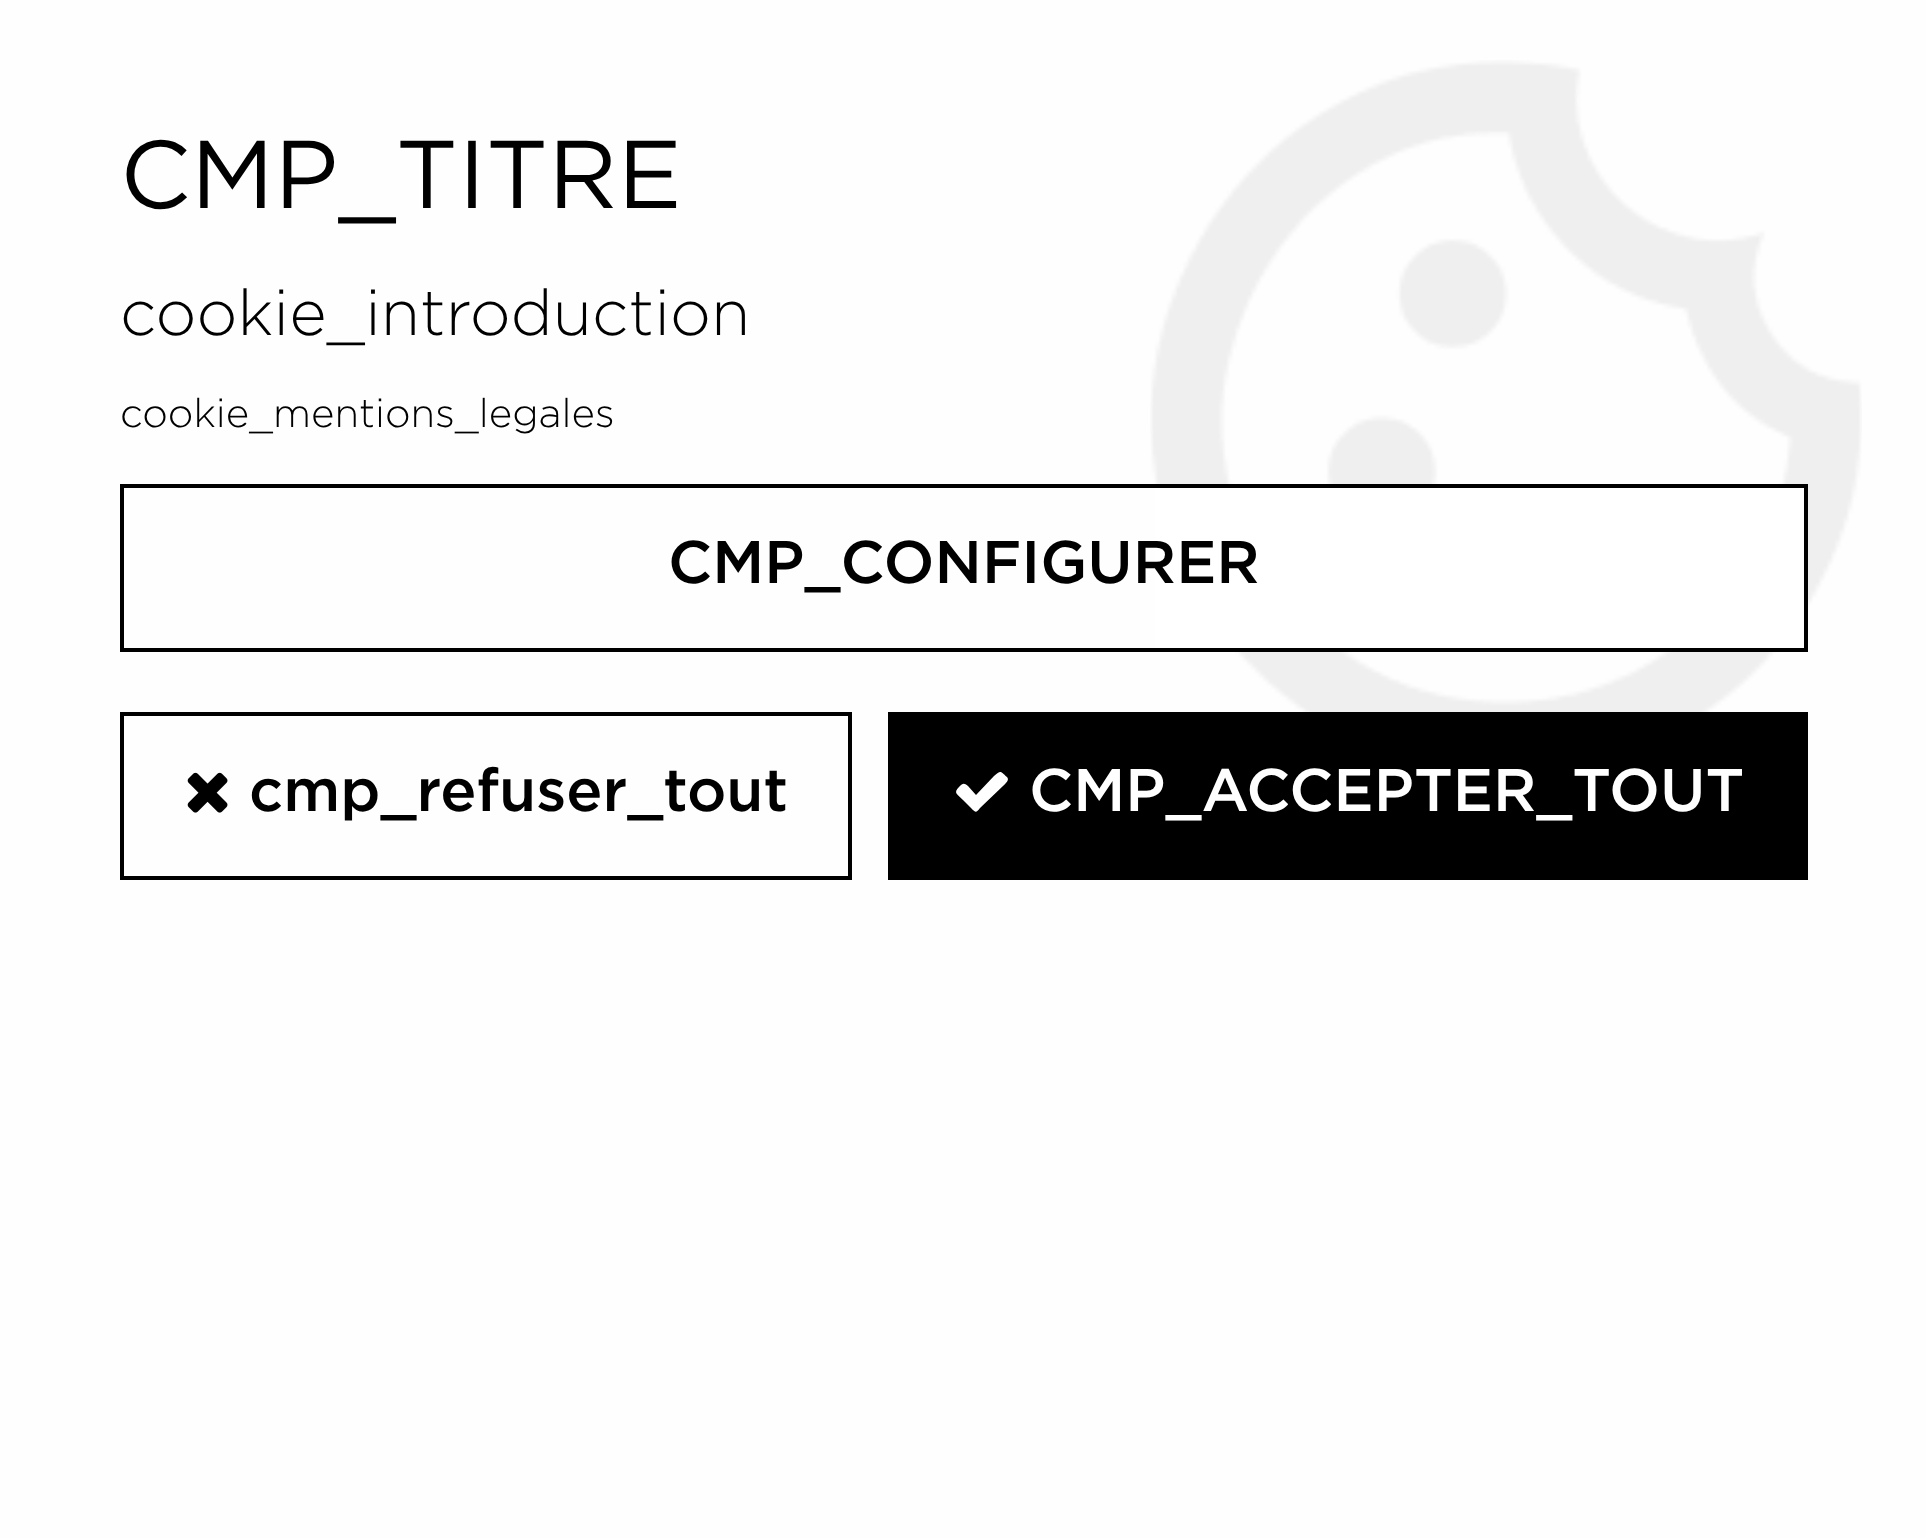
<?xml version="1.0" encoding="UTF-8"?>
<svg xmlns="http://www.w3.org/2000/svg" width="1926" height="1538">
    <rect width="100%" height="100%" fill="#FEFEFE"/>
    <image x="1150" y="60" width="712" height="652" href="img_01.png"/>
    <text x="120" y="208" font-family="Gotham" font-size="96" fill="#000000">CMP_TITRE</text>
    <text x="120" y="335" font-family="Gotham" font-size="64" font-weight="300" fill="#000000">cookie_introduction</text>
    <text x="120" y="427" font-family="Gotham" font-size="40" font-weight="300" fill="#000000">cookie_mentions_legales</text>
    <rect x="1155" y="488" width="649" height="160" fill="#FFFFFF"/>
    <rect x="122" y="486" width="1684" height="164" fill="none" stroke="#000000" stroke-width="4"/>
    <text x="668" y="583" font-family="Gotham" font-size="60" font-weight="500" fill="#000000">CMP_CONFIGURER</text>
    <rect x="122" y="714" width="728" height="164" fill="none" stroke="#000000" stroke-width="4"/>
    <image x="187" y="772" width="41" height="41" href="img_02.png"/>
    <text x="249" y="811" font-family="Gotham" font-size="60" font-weight="500" fill="#000000">cmp_refuser_tout</text>
    <rect x="888" y="712" width="920" height="168" fill="#000000"/>
    <path d="M 1007 777 C 1010 780 1005 784 1003 786 L 980 808 C 976 813 976 813 971 808 L 963 800 C 957 794 953 793 959 787 C 963 783 964 783 968 786 L 976 795 L 994 776 C 1001 770 1000 771 1007 777 Z" fill="#FFFFFF"/>
    <text x="1029" y="811" font-family="Gotham" font-size="60" font-weight="500" fill="#FFFFFF">CMP_ACCEPTER_TOUT</text>
</svg>
